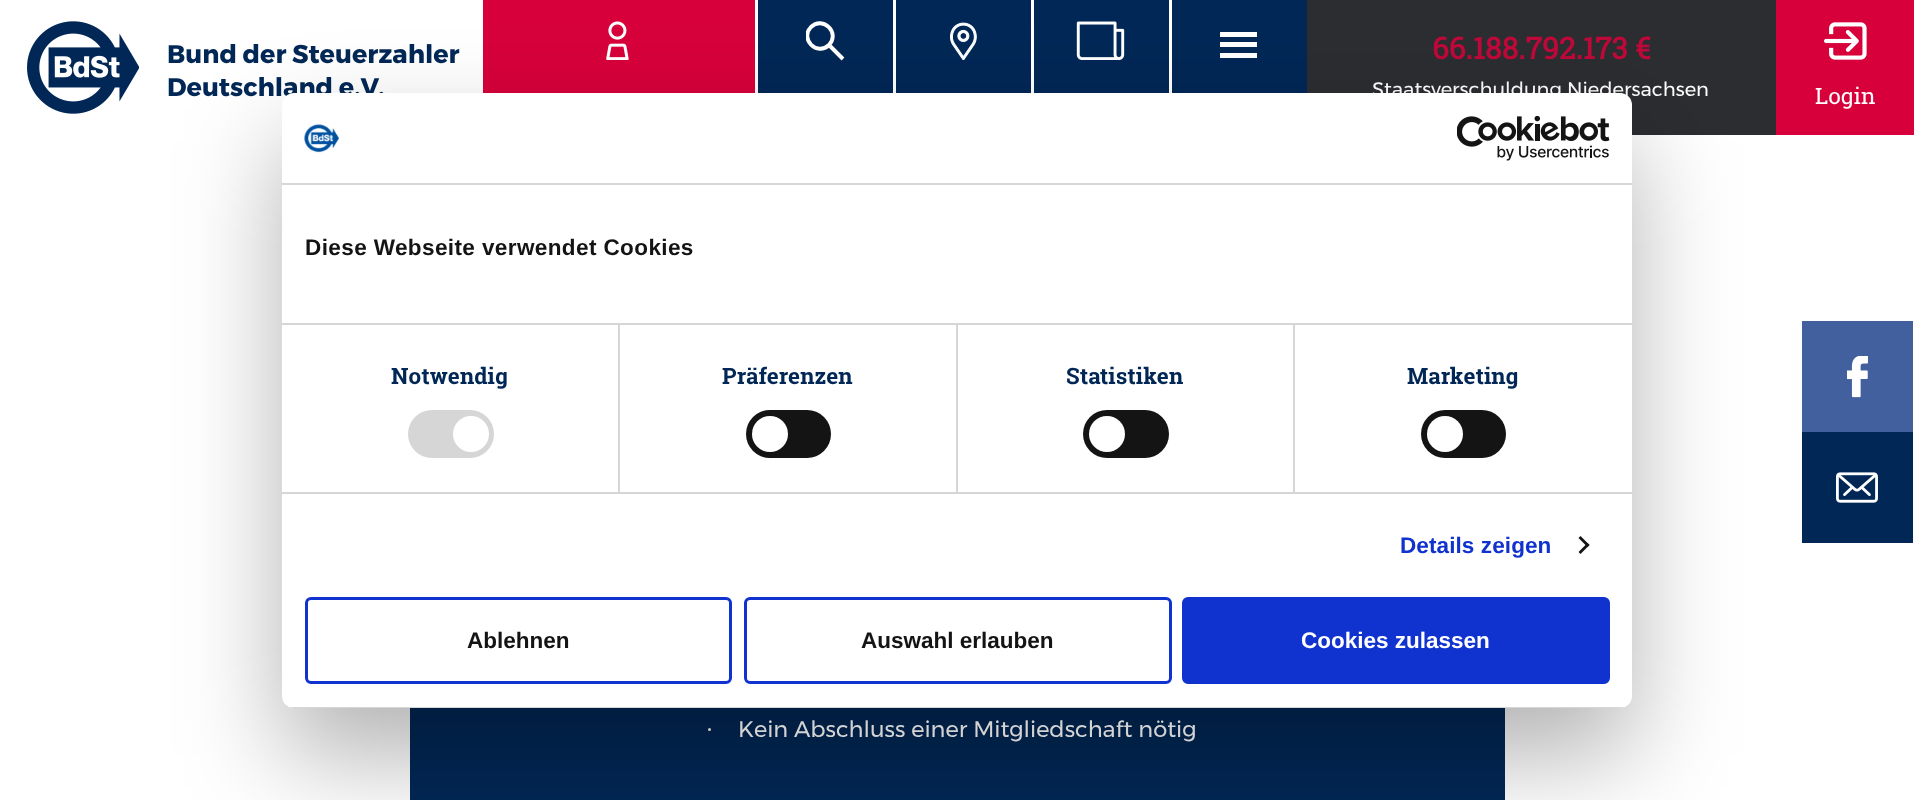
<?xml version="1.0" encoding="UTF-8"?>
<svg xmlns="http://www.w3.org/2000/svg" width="1914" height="800">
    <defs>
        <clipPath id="clip1"><rect x="806" y="21" width="39" height="39"/></clipPath>
        <filter id="blur1" x="-50%" y="-200%" width="200%" height="500%"><feGaussianBlur stdDeviation="51"/></filter>
        <clipPath id="clip2"><rect x="282" y="93" width="1350" height="615" rx="12"/></clipPath>
    </defs>
    <rect width="100%" height="100%" fill="#FFFFFF"/>
    <image x="27" y="21" width="112" height="93" href="img_01.png"/>
    <text font-family="Montserrat" font-size="25.5" font-weight="700" fill="#012756">
        <tspan x="167" y="63">Bund der Steuerzahler</tspan>
        <tspan x="167" y="96">Deutschland e.V.</tspan>
    </text>
    <rect x="483" y="0" width="272" height="93" fill="#D7003A"/>
    <image x="606" y="21" width="23" height="39" href="img_02.png"/>
    <rect x="758" y="0" width="135" height="93" fill="#012756"/>
    <g clip-path="url(#clip1)">
        <path d="M 811 27 C 823 15.5 840.5 33 829 45 C 817 56.5 799.5 39 811 27 Z" fill="none" stroke="#FFFFFF" stroke-width="3.9"/>
    </g>
    <path d="M 829 45 L 843 59" fill="none" stroke="#FFFFFF" stroke-width="3.9"/>
    <rect x="896" y="0" width="135" height="93" fill="#012756"/>
    <image x="950" y="22" width="27" height="38" href="img_03.png"/>
    <rect x="1034" y="0" width="135" height="93" fill="#012756"/>
    <image x="1076" y="21" width="49" height="39" href="img_04.png"/>
    <rect x="1172" y="0" width="135" height="93" fill="#012756"/>
    <rect x="1220" y="32" width="37" height="5" fill="#FFFFFF"/>
    <rect x="1220" y="42" width="37" height="5" fill="#FFFFFF"/>
    <rect x="1220" y="53" width="37" height="5" fill="#FFFFFF"/>
    <rect x="1307" y="0" width="469" height="135" fill="#2C2D31"/>
    <text x="1432" y="59" font-family="Roboto Slab" font-size="30" font-weight="700" fill="#BE0839">66.188.792.173 €</text>
    <text x="1372" y="96" font-family="Montserrat" font-size="19.5" fill="#FFFFFF">Staatsverschuldung Niedersachsen</text>
    <rect x="1776" y="0" width="138" height="135" fill="#D7003A"/>
    <image x="1824" y="22" width="43" height="38" href="img_05.png"/>
    <text x="1815" y="104" font-family="Roboto Slab" font-size="22.5" fill="#FFFFFF">Login</text>
    <rect x="410" y="708" width="1095" height="92" fill="#012756"/>
    <circle cx="709.5" cy="729.5" r="1.5" fill="#FFFFFF"/>
    <rect x="282" y="141" width="1350" height="615" rx="12" fill="#000000" fill-opacity="0.3" filter="url(#blur1)"/>
    <rect x="282" y="93" width="1350" height="615" rx="12" fill="#FFFFFF"/>
    <rect x="282" y="183" width="1350" height="2" fill="#D6D6D6"/>
    <image x="304" y="124" width="35" height="29" href="img_06.png"/>
    <image x="1457" y="116" width="153" height="45" href="img_07.png"/>
    <rect x="618" y="324" width="2" height="168" fill="#D6D6D6"/>
    <rect x="956" y="324" width="2" height="168" fill="#D6D6D6"/>
    <rect x="1293" y="324" width="2" height="168" fill="#D6D6D6"/>
    <rect x="282" y="323" width="1350" height="2" fill="#D6D6D6"/>
    <text x="305" y="255" font-family="Liberation Sans" font-size="22.5" font-weight="700" letter-spacing="0.4" fill="#141414">Diese Webseite verwendet Cookies</text>
    <rect x="282" y="492" width="1350" height="2" fill="#D6D6D6"/>
    <text x="391" y="384" font-family="'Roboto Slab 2'" font-size="22.5" font-weight="700" letter-spacing="0.1" fill="#012756">Notwendig</text>
    <rect x="408" y="410" width="86" height="48" rx="24" fill="#D6D6D6"/>
    <circle cx="471" cy="434" r="18" fill="#FFFFFF"/>
    <text x="722" y="384" font-family="'Roboto Slab 2'" font-size="22.5" font-weight="700" letter-spacing="0.1" fill="#012756">Präferenzen</text>
    <rect x="746" y="410" width="85" height="48" rx="24" fill="#141414"/>
    <circle cx="770" cy="434" r="18" fill="#FFFFFF"/>
    <text x="1066" y="384" font-family="'Roboto Slab 2'" font-size="22.5" font-weight="700" letter-spacing="0.1" fill="#012756">Statistiken</text>
    <rect x="1083" y="410" width="86" height="48" rx="24" fill="#141414"/>
    <circle cx="1107" cy="434" r="18" fill="#FFFFFF"/>
    <text x="1407" y="384" font-family="'Roboto Slab 2'" font-size="22.5" font-weight="700" letter-spacing="0.1" fill="#012756">Marketing</text>
    <rect x="1421" y="410" width="85" height="48" rx="24" fill="#141414"/>
    <circle cx="1445" cy="434" r="18" fill="#FFFFFF"/>
    <text x="1400" y="553" font-family="Liberation Sans" font-size="22.5" font-weight="700" letter-spacing="0.1" fill="#1032CF">Details zeigen</text>
    <path d="M 1580.5 536 L 1589.5 545 L 1587.5 547 L 1578.5 538 Z" fill="#141414"/>
    <path d="M 1587.5 543 L 1589.5 545 L 1580.5 554 L 1578.5 552 Z" fill="#141414"/>
    <g clip-path="url(#clip2)">
        <rect x="282" y="707" width="1350" height="1" fill="#D6D6D6"/>
    </g>
    <rect x="306.5" y="598.5" width="424" height="84" rx="4.5" fill="none" stroke="#1032CF" stroke-width="3"/>
    <text x="467" y="648" font-family="Liberation Sans" font-size="22.5" font-weight="700" fill="#141414">Ablehnen</text>
    <rect x="745.5" y="598.5" width="425" height="84" rx="4.5" fill="none" stroke="#1032CF" stroke-width="3"/>
    <text x="861" y="648" font-family="Liberation Sans" font-size="22.5" font-weight="700" fill="#141414">Auswahl erlauben</text>
    <rect x="1183.5" y="598.5" width="425" height="84" rx="4.5" fill="#1032CF" stroke="#1032CF" stroke-width="3"/>
    <text x="1301" y="648" font-family="Liberation Sans" font-size="22.5" font-weight="700" fill="#FFFFFF">Cookies zulassen</text>
    <rect x="1802" y="321" width="111" height="111" fill="#42609E"/>
    <image x="1847" y="356" width="21" height="42" href="img_08.png"/>
    <rect x="1802" y="432" width="111" height="111" fill="#012756"/>
    <image x="1836" y="472" width="42" height="31" href="img_09.png"/>
    <text x="738" y="737" font-family="Montserrat" font-size="22.5" fill="#D3D3D3">Kein Abschluss einer Mitgliedschaft nötig</text>
</svg>
